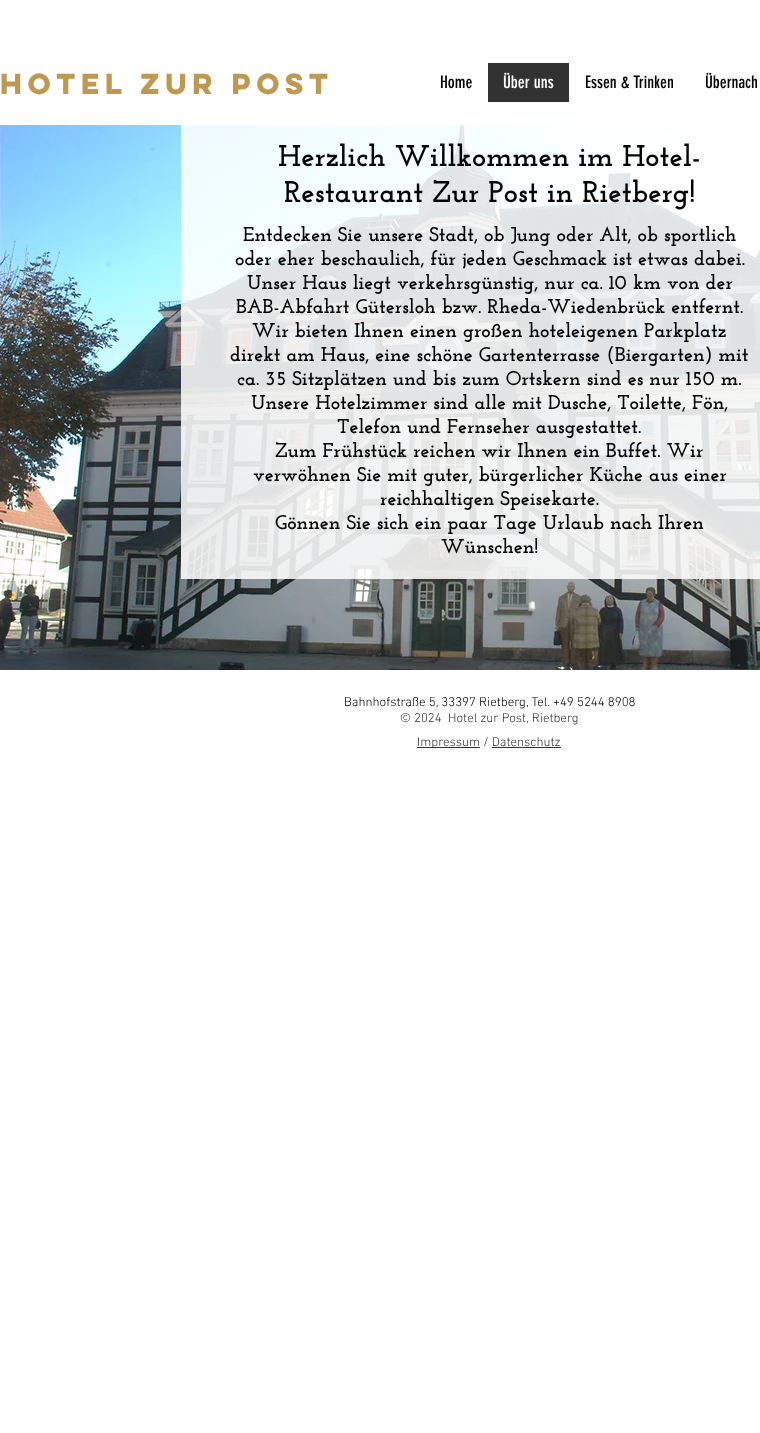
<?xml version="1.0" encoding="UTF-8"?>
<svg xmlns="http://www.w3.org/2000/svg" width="760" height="1433">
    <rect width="100%" height="100%" fill="#FFFFFF"/>
    <text x="0" y="94" font-family="'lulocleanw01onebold'" font-size="26" font-weight="700" fill="#BF9952">Hotel zur Post</text>
    <text x="440" y="88" font-family="'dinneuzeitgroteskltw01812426'" font-size="17" fill="#000000">Home</text>
    <rect x="488" y="63" width="81" height="39" fill="#323232"/>
    <text x="503" y="88" font-family="'dinneuzeitgroteskltw01812426'" font-size="17" fill="#FFFFFF">Über uns</text>
    <text x="585" y="88" font-family="'dinneuzeitgroteskltw01812426'" font-size="17" fill="#000000">Essen &amp; Trinken</text>
    <text x="705" y="88" font-family="'dinneuzeitgroteskltw01812426'" font-size="17" fill="#000000">Übernach</text>
    <image x="0" y="125" width="760" height="545" href="img_01.png"/>
    <rect x="181" y="125" width="579" height="454" fill="#FFFFFF" fill-opacity="0.86"/>
    <text x="278" y="166" font-family="Josefin Slab" font-size="30" font-weight="700" fill="#000000">Herzlich Willkommen im Hotel-</text>
    <text x="284" y="202" font-family="Josefin Slab" font-size="30" font-weight="700" fill="#000000">Restaurant Zur Post in Rietberg!</text>
    <text x="243" y="241" font-family="Josefin Slab" font-size="20" font-weight="700" fill="#000000">Entdecken Sie unsere Stadt, ob Jung oder Alt, ob sportlich</text>
    <text x="235" y="265" font-family="Josefin Slab" font-size="20" font-weight="700" fill="#000000">oder eher beschaulich, für jeden Geschmack ist etwas dabei.</text>
    <text x="247" y="289" font-family="Josefin Slab" font-size="20" font-weight="700" fill="#000000">Unser Haus liegt verkehrsgünstig, nur ca. 10 km von der</text>
    <text x="236" y="313" font-family="Josefin Slab" font-size="20" font-weight="700" fill="#000000">BAB-Abfahrt Gütersloh bzw. Rheda-Wiedenbrück entfernt.</text>
    <text x="252" y="337" font-family="Josefin Slab" font-size="20" font-weight="700" fill="#000000">Wir bieten Ihnen einen großen hoteleigenen Parkplatz</text>
    <text x="230" y="361" font-family="Josefin Slab" font-size="20" font-weight="700" fill="#000000">direkt am Haus, eine schöne Gartenterrasse (Biergarten) mit</text>
    <text x="237" y="385" font-family="Josefin Slab" font-size="20" font-weight="700" fill="#000000">ca. 35 Sitzplätzen und bis zum Ortskern sind es nur 150 m.</text>
    <text x="251" y="409" font-family="Josefin Slab" font-size="20" font-weight="700" fill="#000000">Unsere Hotelzimmer sind alle mit Dusche, Toilette, Fön,</text>
    <text x="337" y="433" font-family="Josefin Slab" font-size="20" font-weight="700" fill="#000000">Telefon und Fernseher ausgestattet.</text>
    <text x="275" y="457" font-family="Josefin Slab" font-size="20" font-weight="700" fill="#000000">Zum Frühstück reichen wir Ihnen ein Buffet. Wir</text>
    <text x="253" y="481" font-family="Josefin Slab" font-size="20" font-weight="700" fill="#000000">verwöhnen Sie mit guter, bürgerlicher Küche aus einer</text>
    <text x="380" y="505" font-family="Josefin Slab" font-size="20" font-weight="700" fill="#000000">reichhaltigen Speisekarte.</text>
    <text x="275" y="529" font-family="Josefin Slab" font-size="20" font-weight="700" fill="#000000">Gönnen Sie sich ein paar Tage Urlaub nach Ihren</text>
    <text x="441" y="553" font-family="Josefin Slab" font-size="20" font-weight="700" fill="#000000">Wünschen!</text>
    <text x="344" y="706" font-family="'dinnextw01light'" font-size="13" font-weight="300" fill="#000000">Bahnhofstraße 5, 33397 Rietberg, Tel. +49 5244 8908</text>
    <text x="400" y="722" font-family="'dinnextw01light'" font-size="13" font-weight="300" fill="#333333" xml:space="preserve">© 2024  Hotel zur Post, Rietberg</text>
    <rect x="417" y="747" width="63" height="1" fill="#333333"/>
    <text x="417" y="746" font-family="'dinnextw01light'" font-size="13" font-weight="300" fill="#333333">Impressum / Datenschutz</text>
    <rect x="492" y="747" width="69" height="1" fill="#333333"/>
</svg>
